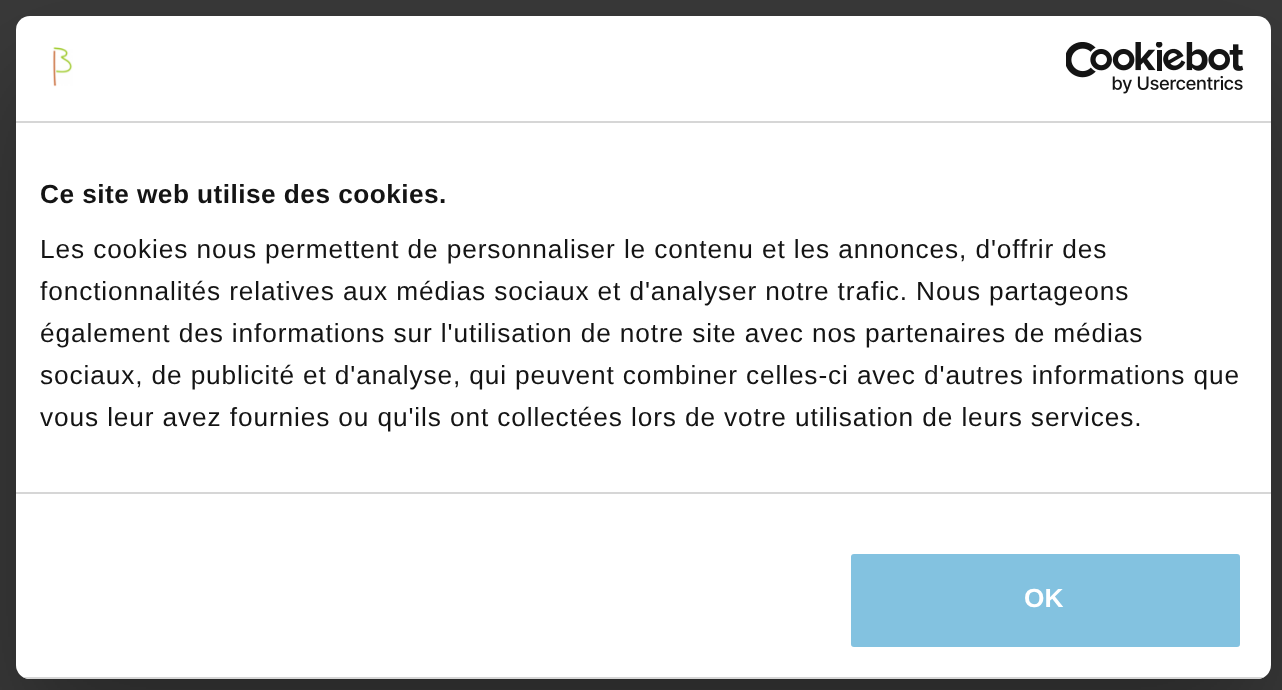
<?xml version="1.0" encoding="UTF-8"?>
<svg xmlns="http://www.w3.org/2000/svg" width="1282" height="690">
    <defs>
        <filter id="blur1" x="-50%" y="-200%" width="200%" height="500%"><feGaussianBlur stdDeviation="59.5"/></filter>
        <clipPath id="clip1"><rect x="16" y="16" width="1255" height="663" rx="14"/></clipPath>
    </defs>
    <rect width="100%" height="100%" fill="#393939"/>
    <rect x="16" y="72" width="1255" height="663" rx="14" fill="#000000" fill-opacity="0.3" filter="url(#blur1)"/>
    <rect x="16" y="16" width="1255" height="663" rx="14" fill="#FFFFFF"/>
    <rect x="16" y="121" width="1255" height="2" fill="#D6D6D6"/>
    <image x="52" y="47" width="21" height="40" href="img_01.png"/>
    <image x="1066" y="42" width="178" height="52" href="img_02.png"/>
    <rect x="16" y="492" width="1255" height="2" fill="#D6D6D6"/>
    <text x="40" y="203" font-family="Liberation Sans" font-size="26.25" font-weight="700" letter-spacing="0.45" fill="#141414">Ce site web utilise des cookies.</text>
    <text font-family="Liberation Sans" font-size="26.25" letter-spacing="0.88" fill="#141414">
        <tspan x="40" y="258">Les cookies nous permettent de personnaliser le contenu et les annonces, d'offrir des</tspan>
        <tspan x="40" y="300">fonctionnalités relatives aux médias sociaux et d'analyser notre trafic. Nous partageons</tspan>
        <tspan x="40" y="342">également des informations sur l'utilisation de notre site avec nos partenaires de médias</tspan>
        <tspan x="40" y="384">sociaux, de publicité et d'analyse, qui peuvent combiner celles-ci avec d'autres informations que</tspan>
        <tspan x="40" y="426">vous leur avez fournies ou qu'ils ont collectées lors de votre utilisation de leurs services.</tspan>
    </text>
    <g clip-path="url(#clip1)">
        <rect x="16" y="677" width="1255" height="2" fill="#D6D6D6"/>
    </g>
    <rect x="849" y="552" width="393" height="97" rx="5" fill="#83C2E0" stroke="#FFFFFF" stroke-width="4"/>
    <text x="1024" y="607" font-family="Liberation Sans" font-size="26.25" font-weight="700" fill="#FFFFFF">OK</text>
</svg>
